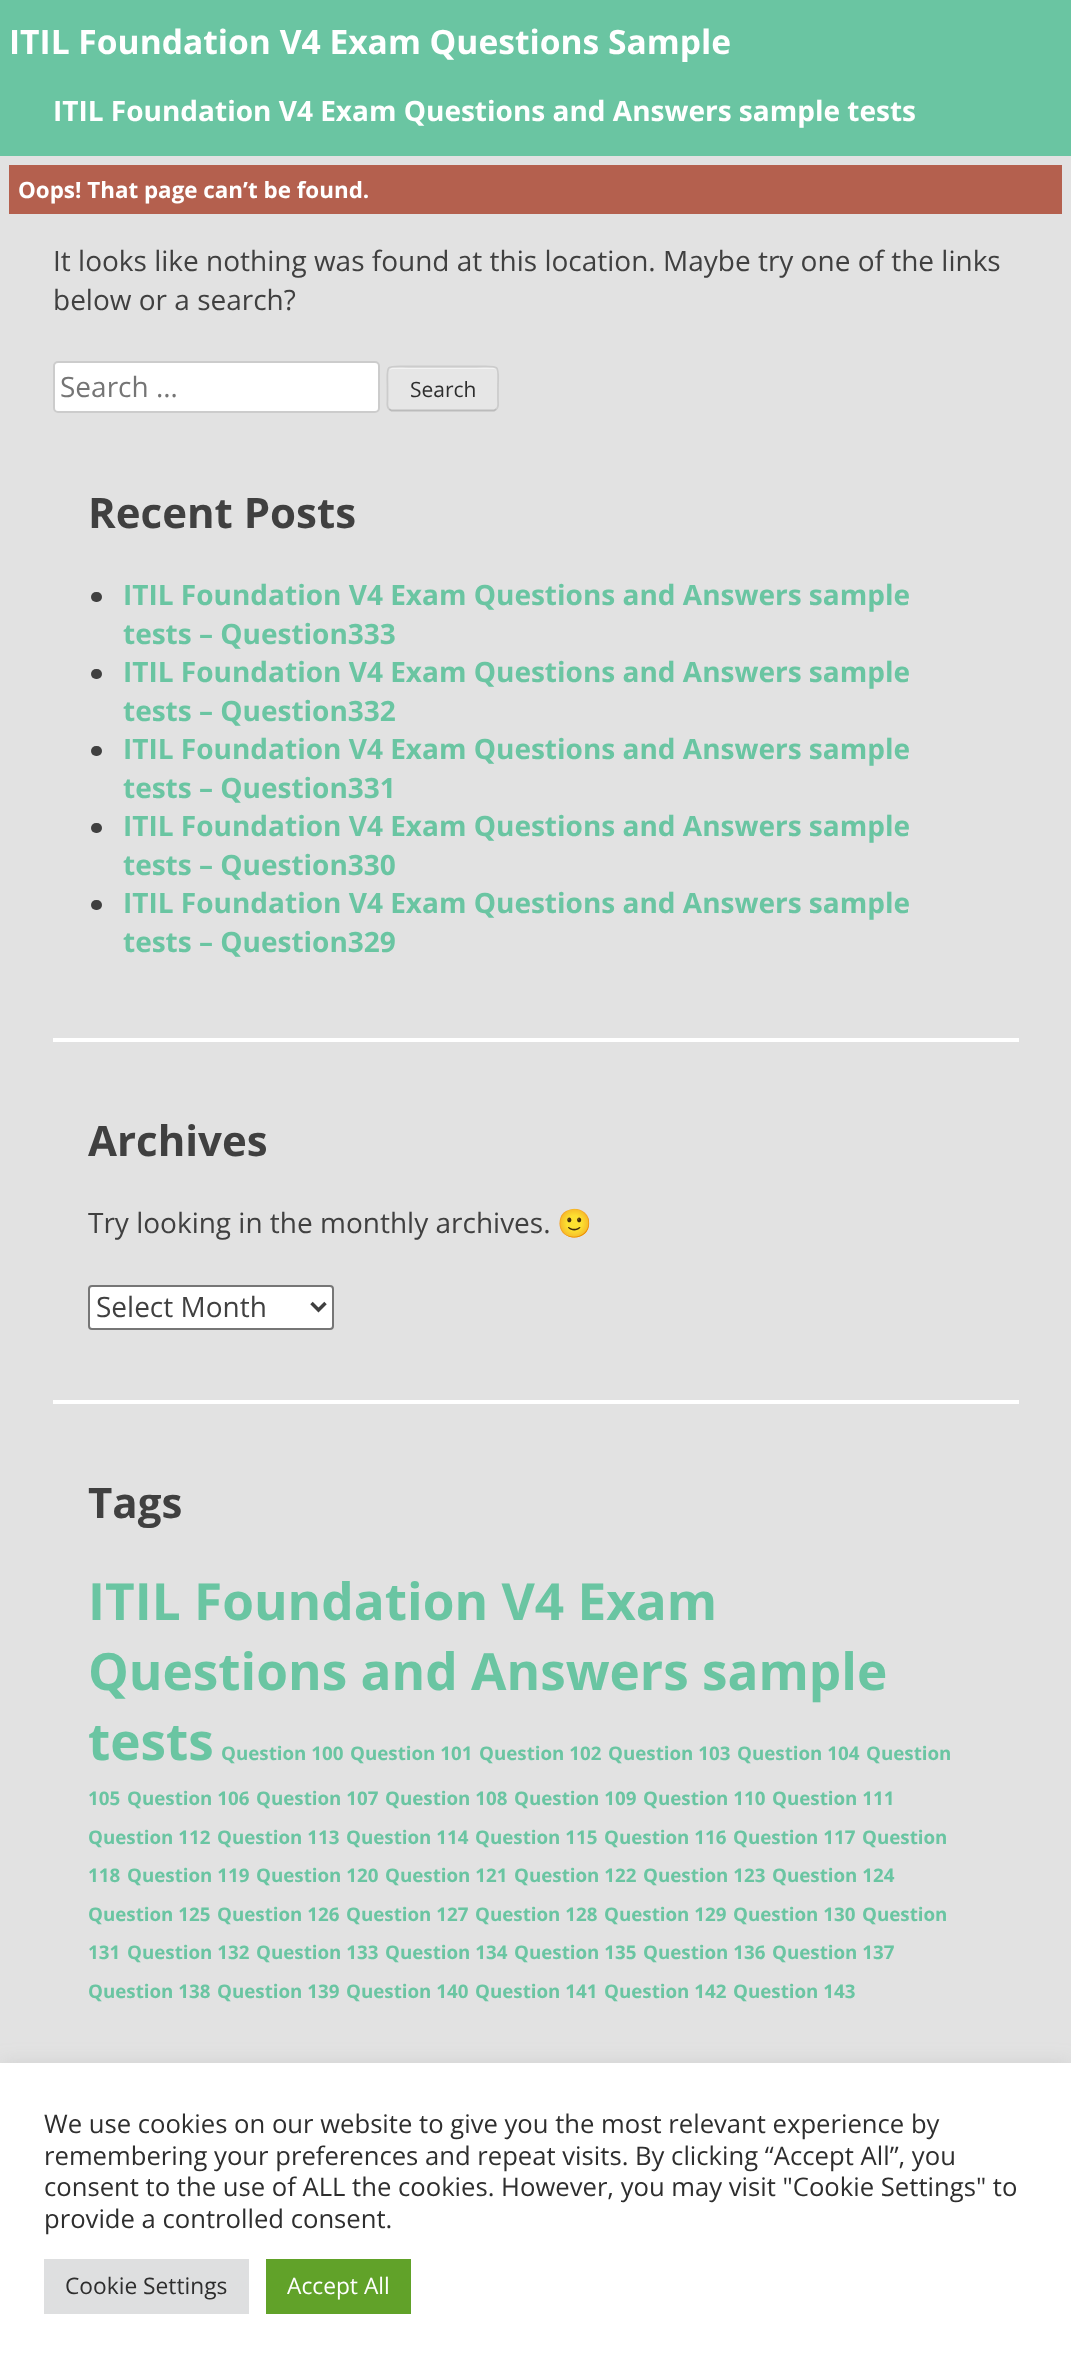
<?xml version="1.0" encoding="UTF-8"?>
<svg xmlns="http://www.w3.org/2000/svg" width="1071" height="2365">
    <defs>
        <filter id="blur1" x="-50%" y="-200%" width="200%" height="500%"><feGaussianBlur stdDeviation="9"/></filter>
    </defs>
    <rect width="100%" height="100%" fill="#E2E2E2"/>
    <rect x="0" y="0" width="1071" height="156" fill="#6AC5A2"/>
    <text x="9" y="54" font-family="Open Sans" font-size="33.6" font-weight="700" fill="#FFFFFF">ITIL Foundation V4 Exam Questions Sample</text>
    <text x="53" y="121" font-family="Open Sans" font-size="28" font-weight="700" fill="#FFFFFF">ITIL Foundation V4 Exam Questions and Answers sample tests</text>
    <rect x="9" y="165" width="1053" height="49" fill="#B4604E"/>
    <text x="18" y="198" font-family="Open Sans" font-size="22.4" font-weight="700" fill="#FFFFFF">Oops! That page can’t be found.</text>
    <text font-family="Open Sans" font-size="28" fill="#404040">
        <tspan x="53" y="271">It looks like nothing was found at this location. Maybe try one of the links</tspan>
        <tspan x="53" y="310">below or a search?</tspan>
    </text>
    <rect x="54" y="362" width="325" height="50" rx="4" fill="#FFFFFF" stroke="#CCCCCC" stroke-width="2"/>
    <text x="60" y="397" font-family="Open Sans" font-size="28" fill="#757575">Search …</text>
    <rect x="387" y="366" width="112" height="45" rx="5" fill="#E6E6E6"/>
    <path d="M 392 369 H 494 C 495 369 497 371 497 373 L 496 370 L 494 368 H 392 C 391 368 390 369 390 370 Z" fill="#F3F3F3"/>
    <path d="M 496.5 409 L 494 410.5 H 391.5 L 389 409" fill="none" stroke="#BBBBBB" stroke-width="1.8"/>
    <path d="M 389 409 C 386.5 407 387.5 402.5 387.5 400 V 388.5 C 387.5 363.5 383.5 366.5 409 366.5 H 476.5 C 502 366.5 498 363.5 498 388.5 V 400 C 498 402.5 499 407 496.5 409" fill="none" stroke="#CCCCCC" stroke-width="1.8"/>
    <text x="410" y="397" font-family="Open Sans" font-size="21" fill="#2E2E2E">Search</text>
    <rect x="53" y="1038" width="966" height="4" fill="#FFFFFF"/>
    <text x="88" y="528" font-family="Open Sans" font-size="42" font-weight="700" fill="#404040">Recent Posts</text>
    <rect x="91" y="592" width="11" height="10" rx="5" fill="#404040"/>
    <text font-family="Open Sans" font-size="28" font-weight="700" fill="#6AC5A2">
        <tspan x="123" y="605">ITIL Foundation V4 Exam Questions and Answers sample</tspan>
        <tspan x="123" y="644">tests – Question333</tspan>
    </text>
    <rect x="91" y="669" width="11" height="10" rx="5" fill="#404040"/>
    <text font-family="Open Sans" font-size="28" font-weight="700" fill="#6AC5A2">
        <tspan x="123" y="682">ITIL Foundation V4 Exam Questions and Answers sample</tspan>
        <tspan x="123" y="721">tests – Question332</tspan>
    </text>
    <rect x="91" y="746" width="11" height="10" rx="5" fill="#404040"/>
    <text font-family="Open Sans" font-size="28" font-weight="700" fill="#6AC5A2">
        <tspan x="123" y="759">ITIL Foundation V4 Exam Questions and Answers sample</tspan>
        <tspan x="123" y="798">tests – Question331</tspan>
    </text>
    <rect x="91" y="823" width="11" height="10" rx="5" fill="#404040"/>
    <text font-family="Open Sans" font-size="28" font-weight="700" fill="#6AC5A2">
        <tspan x="123" y="836">ITIL Foundation V4 Exam Questions and Answers sample</tspan>
        <tspan x="123" y="875">tests – Question330</tspan>
    </text>
    <rect x="91" y="900" width="11" height="10" rx="5" fill="#404040"/>
    <text font-family="Open Sans" font-size="28" font-weight="700" fill="#6AC5A2">
        <tspan x="123" y="913">ITIL Foundation V4 Exam Questions and Answers sample</tspan>
        <tspan x="123" y="952">tests – Question329</tspan>
    </text>
    <rect x="53" y="1400" width="966" height="4" fill="#FFFFFF"/>
    <text x="88" y="1156" font-family="Open Sans" font-size="42" font-weight="700" fill="#404040">Archives</text>
    <text x="88" y="1233" font-family="Open Sans" font-size="28" fill="#404040">Try looking in the monthly archives.</text>
    <text x="557" y="1233" font-family="Noto Color Emoji" font-size="28" fill="#404040">🙂</text>
    <rect x="89" y="1286" width="244" height="43" rx="3" fill="#FFFFFF" stroke="#767676" stroke-width="2"/>
    <path d="M 311.5 1303 L 318.5 1310 L 325.5 1303" fill="none" stroke="#404040" stroke-width="3.5"/>
    <text x="96" y="1317" font-family="Open Sans" font-size="28" fill="#404040">Select Month</text>
    <text x="88" y="1518" font-family="Open Sans" font-size="42" font-weight="700" fill="#404040">Tags</text>
    <text font-family="Open Sans" font-size="51.3" font-weight="700" fill="#6AC5A2">
        <tspan x="88" y="1620">ITIL Foundation V4 Exam</tspan>
        <tspan x="88" y="1690">Questions and Answers sample</tspan>
        <tspan x="88" y="1760">tests</tspan>
    </text>
    <text x="221" y="1760" font-family="Open Sans" font-size="18.75" font-weight="700" fill="#6AC5A2">Question 100</text>
    <text x="350" y="1760" font-family="Open Sans" font-size="18.75" font-weight="700" fill="#6AC5A2">Question 101</text>
    <text x="479" y="1760" font-family="Open Sans" font-size="18.75" font-weight="700" fill="#6AC5A2">Question 102</text>
    <text x="608" y="1760" font-family="Open Sans" font-size="18.75" font-weight="700" fill="#6AC5A2">Question 103</text>
    <text x="737" y="1760" font-family="Open Sans" font-size="18.75" font-weight="700" fill="#6AC5A2">Question 104</text>
    <text x="866" y="1760" font-family="Open Sans" font-size="18.75" font-weight="700" fill="#6AC5A2">Question</text>
    <text x="88" y="1805" font-family="Open Sans" font-size="18.75" font-weight="700" fill="#6AC5A2">105</text>
    <text x="127" y="1805" font-family="Open Sans" font-size="18.75" font-weight="700" fill="#6AC5A2">Question 106</text>
    <text x="256" y="1805" font-family="Open Sans" font-size="18.75" font-weight="700" fill="#6AC5A2">Question 107</text>
    <text x="385" y="1805" font-family="Open Sans" font-size="18.75" font-weight="700" fill="#6AC5A2">Question 108</text>
    <text x="514" y="1805" font-family="Open Sans" font-size="18.75" font-weight="700" fill="#6AC5A2">Question 109</text>
    <text x="643" y="1805" font-family="Open Sans" font-size="18.75" font-weight="700" fill="#6AC5A2">Question 110</text>
    <text x="772" y="1805" font-family="Open Sans" font-size="18.75" font-weight="700" fill="#6AC5A2">Question 111</text>
    <text x="88" y="1844" font-family="Open Sans" font-size="18.75" font-weight="700" fill="#6AC5A2">Question 112</text>
    <text x="217" y="1844" font-family="Open Sans" font-size="18.75" font-weight="700" fill="#6AC5A2">Question 113</text>
    <text x="346" y="1844" font-family="Open Sans" font-size="18.75" font-weight="700" fill="#6AC5A2">Question 114</text>
    <text x="475" y="1844" font-family="Open Sans" font-size="18.75" font-weight="700" fill="#6AC5A2">Question 115</text>
    <text x="604" y="1844" font-family="Open Sans" font-size="18.75" font-weight="700" fill="#6AC5A2">Question 116</text>
    <text x="733" y="1844" font-family="Open Sans" font-size="18.75" font-weight="700" fill="#6AC5A2">Question 117</text>
    <text x="862" y="1844" font-family="Open Sans" font-size="18.75" font-weight="700" fill="#6AC5A2">Question</text>
    <text x="88" y="1882" font-family="Open Sans" font-size="18.75" font-weight="700" fill="#6AC5A2">118</text>
    <text x="127" y="1882" font-family="Open Sans" font-size="18.75" font-weight="700" fill="#6AC5A2">Question 119</text>
    <text x="256" y="1882" font-family="Open Sans" font-size="18.75" font-weight="700" fill="#6AC5A2">Question 120</text>
    <text x="385" y="1882" font-family="Open Sans" font-size="18.75" font-weight="700" fill="#6AC5A2">Question 121</text>
    <text x="514" y="1882" font-family="Open Sans" font-size="18.75" font-weight="700" fill="#6AC5A2">Question 122</text>
    <text x="643" y="1882" font-family="Open Sans" font-size="18.75" font-weight="700" fill="#6AC5A2">Question 123</text>
    <text x="772" y="1882" font-family="Open Sans" font-size="18.75" font-weight="700" fill="#6AC5A2">Question 124</text>
    <text x="88" y="1921" font-family="Open Sans" font-size="18.75" font-weight="700" fill="#6AC5A2">Question 125</text>
    <text x="217" y="1921" font-family="Open Sans" font-size="18.75" font-weight="700" fill="#6AC5A2">Question 126</text>
    <text x="346" y="1921" font-family="Open Sans" font-size="18.75" font-weight="700" fill="#6AC5A2">Question 127</text>
    <text x="475" y="1921" font-family="Open Sans" font-size="18.75" font-weight="700" fill="#6AC5A2">Question 128</text>
    <text x="604" y="1921" font-family="Open Sans" font-size="18.75" font-weight="700" fill="#6AC5A2">Question 129</text>
    <text x="733" y="1921" font-family="Open Sans" font-size="18.75" font-weight="700" fill="#6AC5A2">Question 130</text>
    <text x="862" y="1921" font-family="Open Sans" font-size="18.75" font-weight="700" fill="#6AC5A2">Question</text>
    <text x="88" y="1959" font-family="Open Sans" font-size="18.75" font-weight="700" fill="#6AC5A2">131</text>
    <text x="127" y="1959" font-family="Open Sans" font-size="18.75" font-weight="700" fill="#6AC5A2">Question 132</text>
    <text x="256" y="1959" font-family="Open Sans" font-size="18.75" font-weight="700" fill="#6AC5A2">Question 133</text>
    <text x="385" y="1959" font-family="Open Sans" font-size="18.75" font-weight="700" fill="#6AC5A2">Question 134</text>
    <text x="514" y="1959" font-family="Open Sans" font-size="18.75" font-weight="700" fill="#6AC5A2">Question 135</text>
    <text x="643" y="1959" font-family="Open Sans" font-size="18.75" font-weight="700" fill="#6AC5A2">Question 136</text>
    <text x="772" y="1959" font-family="Open Sans" font-size="18.75" font-weight="700" fill="#6AC5A2">Question 137</text>
    <text x="88" y="1998" font-family="Open Sans" font-size="18.75" font-weight="700" fill="#6AC5A2">Question 138</text>
    <text x="217" y="1998" font-family="Open Sans" font-size="18.75" font-weight="700" fill="#6AC5A2">Question 139</text>
    <text x="346" y="1998" font-family="Open Sans" font-size="18.75" font-weight="700" fill="#6AC5A2">Question 140</text>
    <text x="475" y="1998" font-family="Open Sans" font-size="18.75" font-weight="700" fill="#6AC5A2">Question 141</text>
    <text x="604" y="1998" font-family="Open Sans" font-size="18.75" font-weight="700" fill="#6AC5A2">Question 142</text>
    <text x="733" y="1998" font-family="Open Sans" font-size="18.75" font-weight="700" fill="#6AC5A2">Question 143</text>
    <rect x="0" y="2062" width="1071" height="302" fill="#ACABAB" fill-opacity="0.3" filter="url(#blur1)"/>
    <rect x="0" y="2063" width="1071" height="302" fill="#FFFFFF"/>
    <text font-family="Open Sans" font-size="25.65" fill="#2E2E2E">
        <tspan x="44" y="2133">We use cookies on our website to give you the most relevant experience by</tspan>
        <tspan x="44" y="2165">remembering your preferences and repeat visits. By clicking “Accept All”, you</tspan>
        <tspan x="44" y="2196">consent to the use of ALL the cookies. However, you may visit "Cookie Settings" to</tspan>
        <tspan x="44" y="2228">provide a controlled consent.</tspan>
    </text>
    <rect x="44" y="2259" width="205" height="55" fill="#DEDFE0"/>
    <text x="65" y="2294" font-family="Open Sans" font-size="22.75" fill="#2E2E2E">Cookie Settings</text>
    <rect x="266" y="2259" width="145" height="55" fill="#61A229"/>
    <text x="287" y="2294" font-family="Open Sans" font-size="22.75" fill="#FFFFFF">Accept All</text>
</svg>
